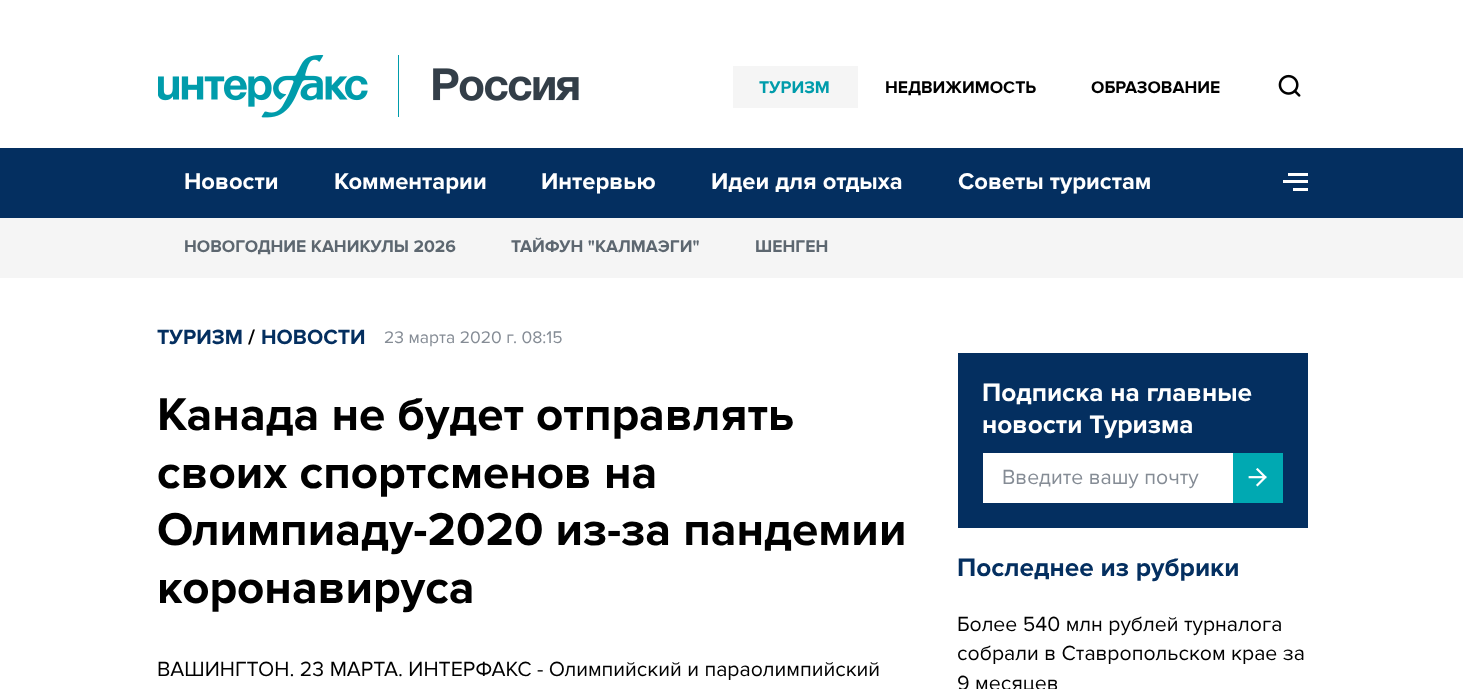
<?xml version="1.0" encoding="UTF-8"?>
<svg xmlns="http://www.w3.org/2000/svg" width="1463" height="689">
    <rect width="100%" height="100%" fill="#FFFFFF"/>
    <image x="158" y="55" width="421" height="63" href="img_01.png"/>
    <rect x="733" y="66" width="125" height="42" fill="#F5F5F5"/>
    <text x="759" y="93" font-family="Proxima Nova" font-size="17.5" font-weight="700" fill="#009CAB">ТУРИЗМ</text>
    <text x="885" y="93" font-family="Proxima Nova" font-size="17.5" font-weight="700" fill="#000000">НЕДВИЖИМОСТЬ</text>
    <text x="1091" y="93" font-family="Proxima Nova" font-size="17.5" font-weight="700" fill="#000000">ОБРАЗОВАНИЕ</text>
    <image x="1278" y="74" width="23" height="23" href="img_02.png"/>
    <rect x="0" y="148" width="1463" height="70" fill="#042F60"/>
    <text x="184" y="189" font-family="Proxima Nova" font-size="23.75" font-weight="700" fill="#FFFFFF">Новости</text>
    <text x="334" y="189" font-family="Proxima Nova" font-size="23.75" font-weight="700" fill="#FFFFFF">Комментарии</text>
    <text x="541" y="189" font-family="Proxima Nova" font-size="23.75" font-weight="700" fill="#FFFFFF">Интервью</text>
    <text x="711" y="189" font-family="Proxima Nova" font-size="23.75" font-weight="700" fill="#FFFFFF">Идеи для отдыха</text>
    <text x="958" y="189" font-family="Proxima Nova" font-size="23.75" font-weight="700" fill="#FFFFFF">Советы туристам</text>
    <rect x="1288" y="173" width="20" height="3" fill="#FFFFFF"/>
    <rect x="1283" y="180" width="25" height="3" fill="#FFFFFF"/>
    <rect x="1293" y="188" width="15" height="3" fill="#FFFFFF"/>
    <rect x="0" y="218" width="1463" height="60" fill="#F5F5F5"/>
    <text x="184" y="252" font-family="Proxima Nova" font-size="17.5" font-weight="700" fill="#5D6770">НОВОГОДНИЕ КАНИКУЛЫ 2026</text>
    <text x="511" y="252" font-family="Proxima Nova" font-size="17.5" font-weight="700" fill="#5D6770">ТАЙФУН "КАЛМАЭГИ"</text>
    <text x="755" y="252" font-family="Proxima Nova" font-size="17.5" font-weight="700" fill="#5D6770">ШЕНГЕН</text>
    <text x="157" y="344" font-family="Proxima Nova" font-size="21.25" font-weight="700" fill="#042F60">ТУРИЗМ</text>
    <text x="248" y="344" font-family="Proxima Nova" font-size="21.25" font-weight="700" fill="#000000">/</text>
    <text x="261" y="344" font-family="Proxima Nova" font-size="21.25" font-weight="700" fill="#042F60">НОВОСТИ</text>
    <text x="384" y="343" font-family="Proxima Nova" font-size="17.5" fill="#858C95">23 марта 2020 г. 08:15</text>
    <text font-family="Proxima Nova" font-size="47.5" font-weight="700" fill="#000000">
        <tspan x="157" y="430">Канада не будет отправлять</tspan>
        <tspan x="157" y="488">своих спортсменов на</tspan>
        <tspan x="157" y="545">Олимпиаду-2020 из-за пандемии</tspan>
        <tspan x="157" y="603">коронавируса</tspan>
    </text>
    <text x="157" y="676" font-family="Proxima Nova" font-size="21.25" fill="#000000">ВАШИНГТОН. 23 МАРТА. ИНТЕРФАКС - Олимпийский и параолимпийский</text>
    <rect x="958" y="353" width="350" height="175" fill="#042F60"/>
    <text font-family="Proxima Nova" font-size="26.25" font-weight="700" fill="#FFFFFF">
        <tspan x="982" y="401">Подписка на главные</tspan>
        <tspan x="982" y="433">новости Туризма</tspan>
    </text>
    <rect x="983" y="453" width="250" height="50" fill="#FFFFFF"/>
    <text x="1002" y="484" font-family="Proxima Nova" font-size="21.25" fill="#858C95">Введите вашу почту</text>
    <rect x="1233" y="453" width="50" height="50" fill="#00A9B2"/>
    <image x="1248" y="468" width="19" height="19" href="img_03.png"/>
    <text x="957" y="576" font-family="Proxima Nova" font-size="26.25" font-weight="700" fill="#042F60">Последнее из рубрики</text>
    <text font-family="Proxima Nova" font-size="21.25" fill="#000000">
        <tspan x="957" y="631">Более 540 млн рублей турналога</tspan>
        <tspan x="957" y="660">собрали в Ставропольском крае за</tspan>
        <tspan x="957" y="690">9 месяцев</tspan>
    </text>
</svg>
